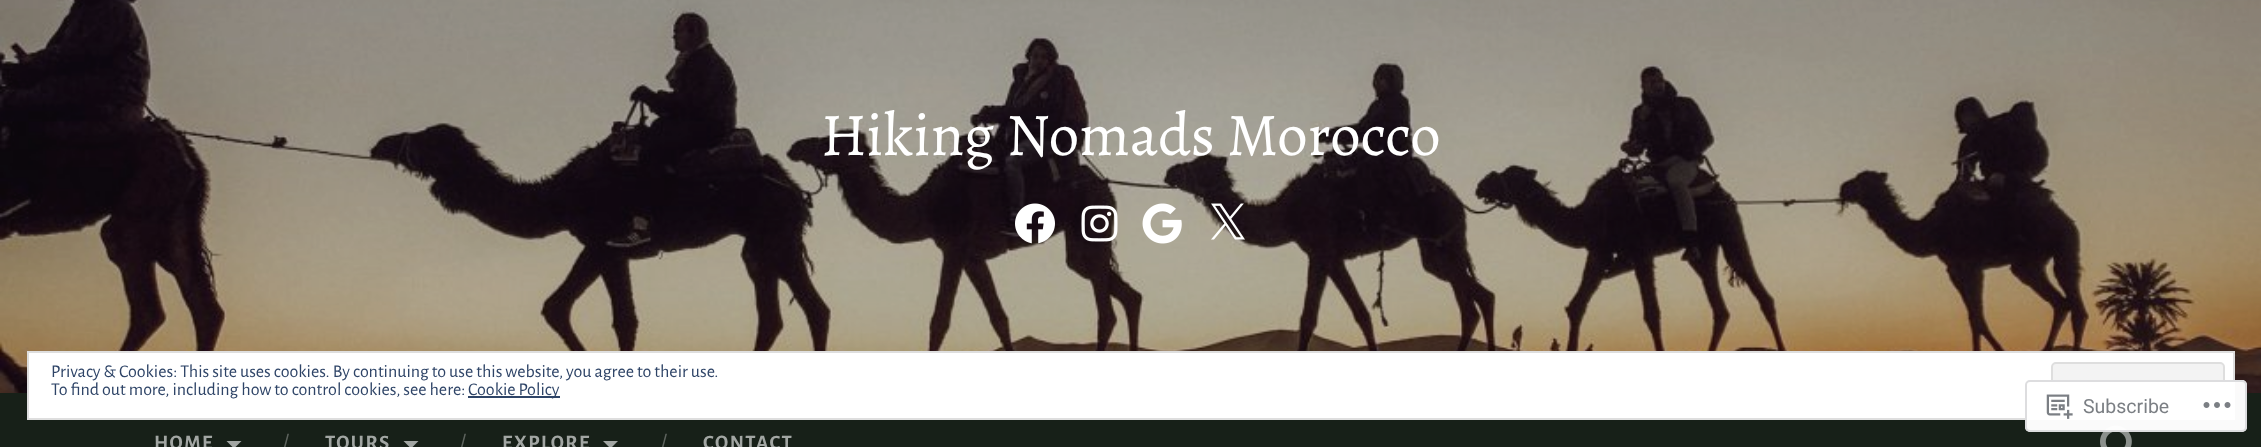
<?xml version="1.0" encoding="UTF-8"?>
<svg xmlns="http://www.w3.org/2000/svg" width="2261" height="447">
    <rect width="100%" height="100%" fill="#FFFFFF"/>
    <image x="0" y="0" width="2261" height="393" href="img_01.png"/>
    <text x="821" y="155" font-family="Alegreya" font-size="60.75" fill="#FFFFFF">Hiking Nomads Morocco</text>
    <image x="1015" y="203" width="40" height="41" href="img_02.png"/>
    <image x="1081" y="205" width="37" height="37" href="img_03.png"/>
    <image x="1142" y="203" width="40" height="41" href="img_04.png"/>
    <image x="1211" y="203" width="34" height="37" href="img_05.png"/>
    <rect x="0" y="393" width="2261" height="54" fill="#172018"/>
    <rect x="28" y="352" width="2206" height="67" fill="#FFFFFF" stroke="#DEDEDE" stroke-width="2"/>
    <text x="51" y="377" font-family="Alegreya Sans" font-size="18" fill="#2E4467">Privacy &amp; Cookies: This site uses cookies. By continuing to use this website, you agree to their use.</text>
    <rect x="2052" y="363" width="172" height="46" rx="4" fill="#F3F3F3" stroke="#DEDEDE" stroke-width="2"/>
    <text x="51" y="395" font-family="Alegreya Sans" font-size="18" fill="#2E4467">To find out more, including how to control cookies, see here:</text>
    <rect x="468" y="396" width="92" height="2" fill="#2E4467"/>
    <text x="468" y="395" font-family="Alegreya Sans" font-size="18" fill="#2E4467">Cookie Policy</text>
    <image x="2100" y="425" width="32" height="22" href="img_08.png"/>
    <rect x="2025" y="380" width="222" height="52" rx="5" fill="#FFFFFF" fill-opacity="0.98"/>
    <rect x="2026" y="381" width="220" height="50" rx="4" fill="none" stroke="#DCDCDE" stroke-opacity="0.98" stroke-width="2"/>
    <image x="2046" y="394" width="27" height="25" href="img_06.png"/>
    <text x="2083" y="413" font-family="Roboto" font-size="19.5" fill="#7B7F84">Subscribe</text>
    <image x="2203" y="402" width="28" height="6" href="img_07.png"/>
    <text x="154" y="449" font-family="Alegreya Sans" font-size="20.5" font-weight="700" letter-spacing="1.5" fill="#A2A6A3">HOME</text>
    <path d="M 226.5 441 H 241.5 L 234 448.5 Z" fill="#A2A6A3"/>
    <text x="282" y="450" font-family="Alegreya Sans" font-size="24" fill="#5D635D">/</text>
    <text x="325" y="449" font-family="Alegreya Sans" font-size="20.5" font-weight="700" letter-spacing="1.5" fill="#A2A6A3">TOURS</text>
    <path d="M 403.5 441 H 418.5 L 411 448.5 Z" fill="#A2A6A3"/>
    <text x="459" y="450" font-family="Alegreya Sans" font-size="24" fill="#5D635D">/</text>
    <text x="502" y="449" font-family="Alegreya Sans" font-size="20.5" font-weight="700" letter-spacing="1.5" fill="#A2A6A3">EXPLORE</text>
    <path d="M 603 441 H 618 L 610.5 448.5 Z" fill="#A2A6A3"/>
    <text x="660" y="450" font-family="Alegreya Sans" font-size="24" fill="#5D635D">/</text>
    <text x="703" y="449" font-family="Alegreya Sans" font-size="20.5" font-weight="700" letter-spacing="1.5" fill="#A2A6A3">CONTACT</text>
</svg>
